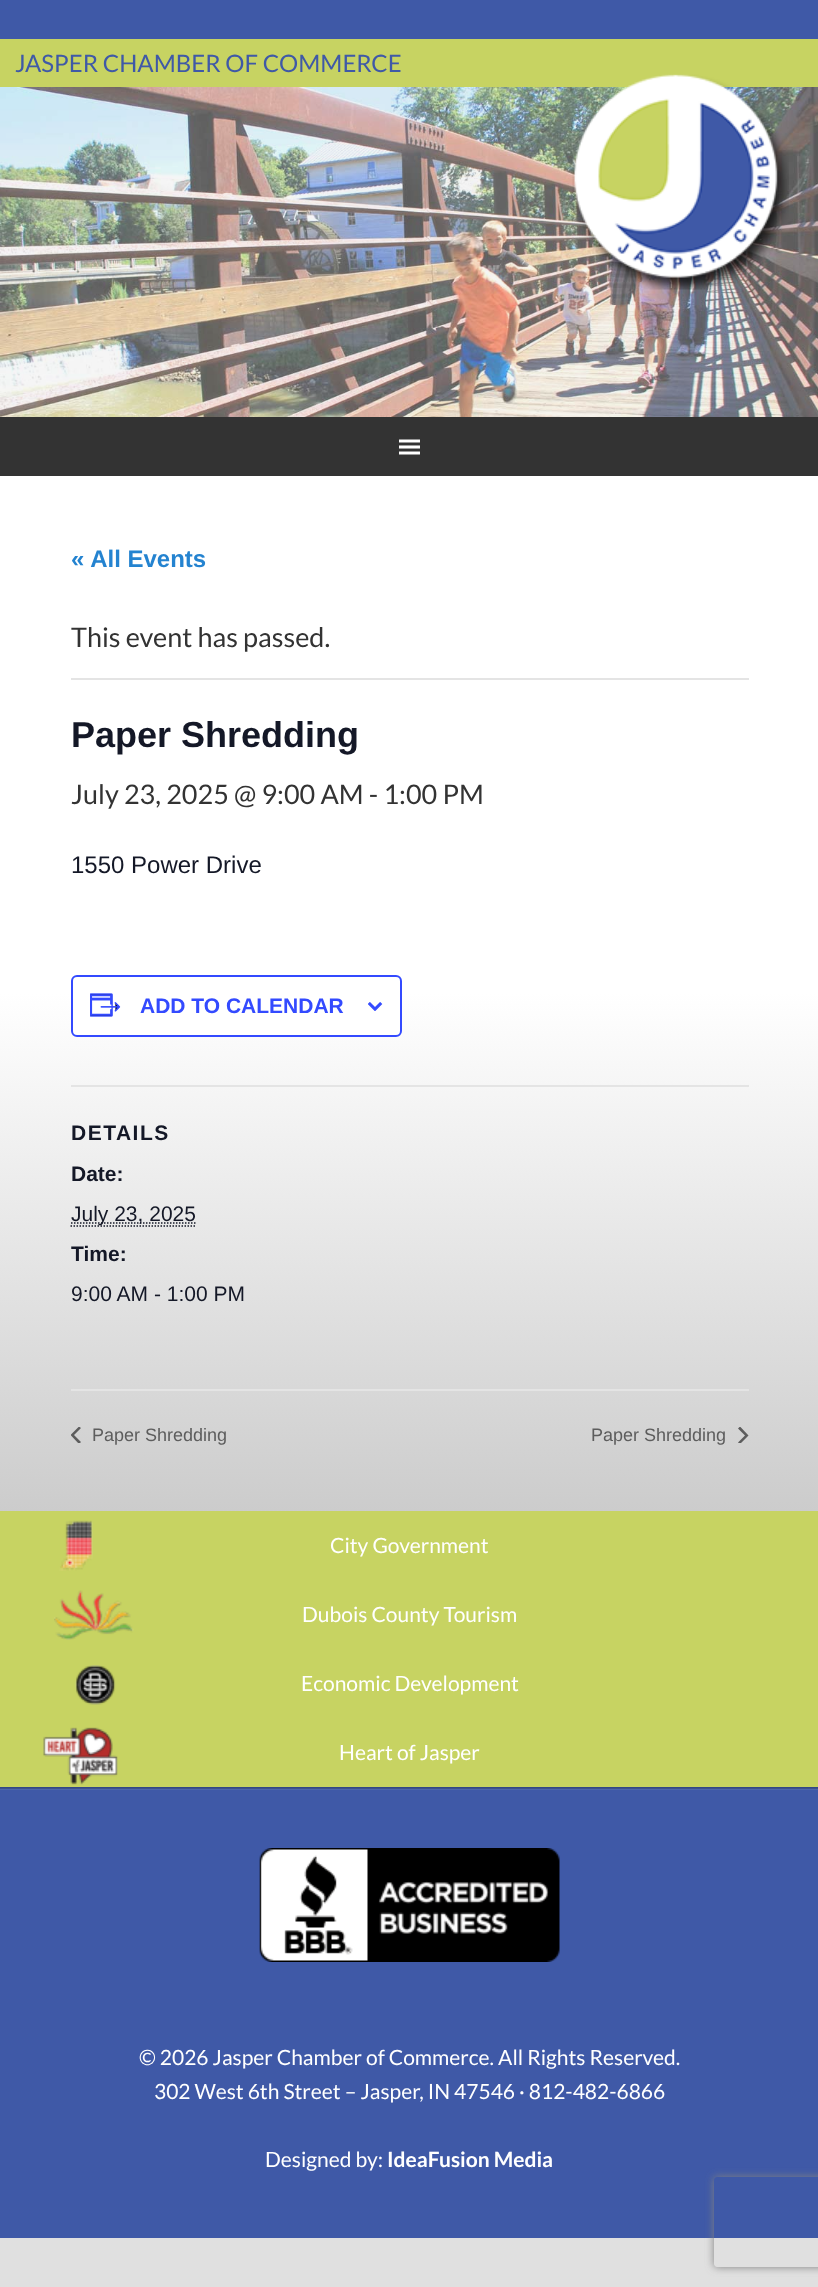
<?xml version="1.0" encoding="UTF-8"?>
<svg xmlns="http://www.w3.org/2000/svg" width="818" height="2287">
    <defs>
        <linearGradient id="g1" gradientUnits="userSpaceOnUse" x1="409" y1="475" x2="410" y2="1511"><stop offset="0.5" stop-color="#FFFFFF"/><stop offset="1" stop-color="#CCCCCC"/></linearGradient>
        <clipPath id="clip1"><rect x="71" y="1427" width="10" height="16"/></clipPath>
        <clipPath id="clip2"><rect x="738" y="1427" width="11" height="16"/></clipPath>
        <clipPath id="clip3"><path d="M 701 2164 H 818 V 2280 H 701 Z M 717 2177 H 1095 C 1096.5 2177 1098 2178.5 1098 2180 V 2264 C 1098 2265.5 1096.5 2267 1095 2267 H 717 C 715.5 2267 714 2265.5 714 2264 V 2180 C 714 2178.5 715.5 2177 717 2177 Z" clip-rule="evenodd"/></clipPath>
        <filter id="blur1" x="-50%" y="-200%" width="200%" height="500%"><feGaussianBlur stdDeviation="4"/></filter>
    </defs>
    <rect width="100%" height="100%" fill="#E0E0E0"/>
    <rect x="0" y="0" width="818" height="39" fill="#3F59A7"/>
    <rect x="0" y="39" width="818" height="48" fill="#C7D362"/>
    <text x="15" y="72" font-family="Lato" font-size="24" fill="#3F59A7">JASPER CHAMBER OF COMMERCE</text>
    <image x="0" y="87" width="818" height="330" href="img_02.png"/>
    <image x="572" y="74" width="217" height="216" href="img_01.png"/>
    <rect x="0" y="417" width="818" height="59" fill="#333333"/>
    <image x="399" y="439" width="21" height="16" href="img_03.png"/>
    <rect x="0" y="476" width="818" height="1035" fill="url(#g1)"/>
    <text x="71" y="567" font-family="Liberation Sans" font-size="24" font-weight="700" fill="#2483D0">« All Events</text>
    <rect x="71" y="678" width="678" height="2" fill="#E4E4E4"/>
    <text x="71" y="647" font-family="Lato" font-size="27" fill="#333333">This event has passed.</text>
    <text x="71" y="747" font-family="Liberation Sans" font-size="36" font-weight="700" fill="#141827">Paper Shredding</text>
    <text x="71" y="804" font-family="Lato" font-size="27" fill="#333333">July 23, 2025 @ 9:00 AM - 1:00 PM</text>
    <text x="71" y="873" font-family="Liberation Sans" font-size="24" fill="#141827">1550 Power Drive</text>
    <rect x="72" y="976" width="329" height="60" rx="5" fill="#FFFFFF" stroke="#334AFF" stroke-width="2"/>
    <image x="90" y="993" width="31" height="24" href="img_04.png"/>
    <text x="140" y="1013" font-family="Liberation Sans" font-size="21" font-weight="700" fill="#334AFF">ADD TO CALENDAR</text>
    <image x="368" y="1002" width="15" height="9" href="img_05.png"/>
    <rect x="71" y="1085" width="678" height="2" fill="#E4E4E4"/>
    <text x="71" y="1140" font-family="Liberation Sans" font-size="21" font-weight="700" letter-spacing="1.5" fill="#141827">DETAILS</text>
    <text x="71" y="1181" font-family="Liberation Sans" font-size="21" font-weight="700" fill="#141827">Date:</text>
    <path d="M 70.5 1226 H 196.5" fill="none" stroke="#141827" stroke-width="1.5" stroke-dasharray="1.5 1.5"/>
    <path d="M 71 1223 H 196" fill="none" stroke="#141827" stroke-width="1.5" stroke-dasharray="1.5 1.5"/>
    <text x="71" y="1221" font-family="Liberation Sans" font-size="21" fill="#141827">July 23, 2025</text>
    <text x="71" y="1261" font-family="Liberation Sans" font-size="21" font-weight="700" fill="#141827">Time:</text>
    <text x="71" y="1301" font-family="Liberation Sans" font-size="21" fill="#141827">9:00 AM - 1:00 PM</text>
    <rect x="71" y="1389" width="678" height="2" fill="#E4E4E4"/>
    <g clip-path="url(#clip1)">
        <path d="M 81 1442 L 79 1444 L 70.5 1435 L 79 1426.5 L 81 1428 L 74 1435 Z" fill="#5D5D5D"/>
    </g>
    <text x="92" y="1441" font-family="Liberation Sans" font-size="18" fill="#5D5D5D">Paper Shredding</text>
    <text x="591" y="1441" font-family="Liberation Sans" font-size="18" fill="#5D5D5D">Paper Shredding</text>
    <g clip-path="url(#clip2)">
        <path d="M 738 1428.5 L 740 1426.5 L 748.5 1435.5 L 740 1444 L 738 1442.5 L 745 1435.5 Z" fill="#5D5D5D"/>
    </g>
    <rect x="0" y="1511" width="818" height="276" fill="#C7D362"/>
    <image x="59" y="1520" width="34" height="51" href="img_06.png"/>
    <text x="330" y="1553" font-family="Lato" font-size="21" fill="#FFFFFF">City Government</text>
    <image x="54" y="1590" width="80" height="50" href="img_07.png"/>
    <text x="302" y="1622" font-family="Lato" font-size="21" fill="#FFFFFF">Dubois County Tourism</text>
    <image x="75" y="1665" width="41" height="40" href="img_08.png"/>
    <text x="301" y="1691" font-family="Lato" font-size="21" fill="#FFFFFF">Economic Development</text>
    <image x="43" y="1727" width="75" height="58" href="img_09.png"/>
    <text x="339" y="1760" font-family="Lato" font-size="21" fill="#FFFFFF">Heart of Jasper</text>
    <rect x="0" y="1790" width="818" height="448" fill="#3F59A7"/>
    <rect x="0" y="1787" width="818" height="1" fill="#324786"/>
    <rect x="0" y="1789" width="818" height="1" fill="#4C65AD"/>
    <rect x="0" y="1788" width="818" height="1" fill="#3D518A"/>
    <image x="259" y="1848" width="301" height="114" href="img_10.png"/>
    <text x="139" y="2065" font-family="Lato" font-size="21" fill="#FFFFFF">© 2026 Jasper Chamber of Commerce. All Rights Reserved.</text>
    <text x="154" y="2099" font-family="Lato" font-size="21" fill="#FFFFFF">302 West 6th Street – Jasper, IN 47546 · 812-482-6866</text>
    <text x="265" y="2167" font-family="Lato" font-size="21" fill="#FFFFFF">Designed by:</text>
    <text x="387" y="2167" font-family="Lato" font-size="21" font-weight="700" fill="#FFFFFF">IdeaFusion Media</text>
    <g clip-path="url(#clip3)">
        <rect x="714" y="2177" width="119" height="90" rx="3" fill="#808080" filter="url(#blur1)"/>
    </g>
</svg>
